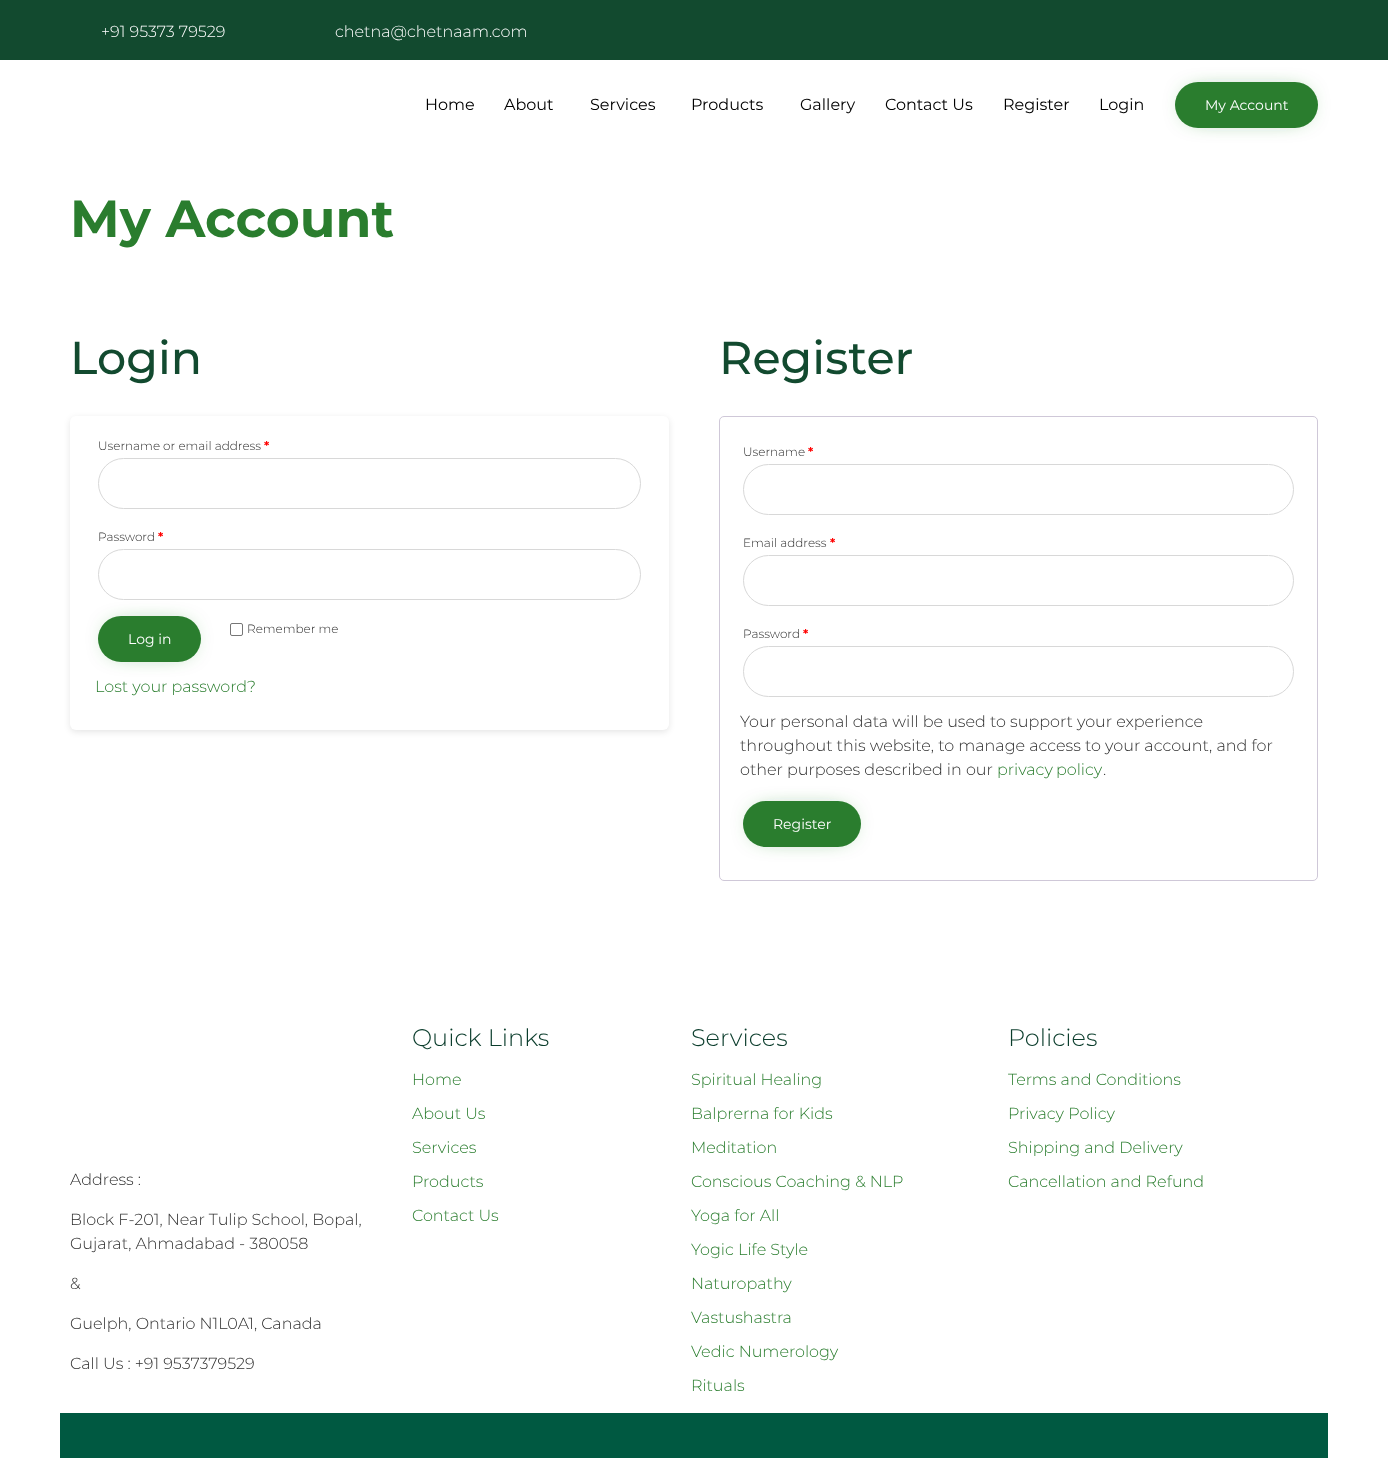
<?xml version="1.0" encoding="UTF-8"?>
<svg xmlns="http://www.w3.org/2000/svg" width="1388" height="1458">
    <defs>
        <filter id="blur1" x="-50%" y="-200%" width="200%" height="500%"><feGaussianBlur stdDeviation="12.5"/></filter>
        <filter id="blur2" x="-50%" y="-200%" width="200%" height="500%"><feGaussianBlur stdDeviation="3"/></filter>
    </defs>
    <rect width="100%" height="100%" fill="#FFFFFF"/>
    <rect x="1189" y="96" width="115" height="18" rx="9" fill="#2A7D2E" filter="url(#blur1)"/>
    <rect x="0" y="0" width="1388" height="60" fill="#124A2F"/>
    <text x="101" y="37" font-family="Montserrat" font-size="16" font-weight="300" fill="#FFFFFF">+91 95373 79529</text>
    <text x="335" y="37" font-family="Montserrat" font-size="16" font-weight="300" fill="#FFFFFF">chetna@chetnaam.com</text>
    <text x="425" y="110" font-family="Montserrat" font-size="16" fill="#000000">Home</text>
    <text x="504" y="110" font-family="Montserrat" font-size="16" fill="#000000">About</text>
    <text x="590" y="110" font-family="Montserrat" font-size="16" fill="#000000">Services</text>
    <text x="691" y="110" font-family="Montserrat" font-size="16" fill="#000000">Products</text>
    <text x="800" y="110" font-family="Montserrat" font-size="16" fill="#000000">Gallery</text>
    <text x="885" y="110" font-family="Montserrat" font-size="16" fill="#000000">Contact Us</text>
    <text x="1003" y="110" font-family="Montserrat" font-size="16" fill="#000000">Register</text>
    <text x="1099" y="110" font-family="Montserrat" font-size="16" fill="#000000">Login</text>
    <rect x="1175" y="82" width="143" height="46" rx="23" fill="#2A7D2E"/>
    <text x="1205" y="110" font-family="Montserrat" font-size="14" fill="#FFFFFF">My Account</text>
    <text x="70" y="237" font-family="Montserrat" font-size="52" font-weight="700" fill="#2A7D2E">My Account</text>
    <text x="70" y="374" font-family="Montserrat" font-size="46" font-weight="500" fill="#124A2F">Login</text>
    <rect x="70" y="418" width="599" height="314" rx="6" fill="#000000" fill-opacity="0.1" filter="url(#blur2)"/>
    <rect x="70" y="416" width="599" height="314" rx="6" fill="#FFFFFF"/>
    <text x="98" y="450" font-family="Montserrat" font-size="12" font-weight="300" fill="#2F2F2F">Username or email address</text>
    <text x="264" y="450" font-family="Montserrat" font-size="12" font-weight="700" fill="#FF0000">*</text>
    <rect x="98.5" y="458.5" width="542" height="50" rx="25" fill="none" stroke="#D8D8D8"/>
    <text x="98" y="541" font-family="Montserrat" font-size="12" font-weight="300" fill="#2F2F2F">Password</text>
    <text x="158" y="541" font-family="Montserrat" font-size="12" font-weight="700" fill="#FF0000">*</text>
    <rect x="98.5" y="549.5" width="542" height="50" rx="25" fill="none" stroke="#D8D8D8"/>
    <rect x="230.5" y="623.5" width="12" height="12" rx="1.5" fill="none" stroke="#767676"/>
    <text x="247" y="633" font-family="Montserrat" font-size="12" font-weight="300" fill="#2F2F2F">Remember me</text>
    <rect x="112" y="630" width="75" height="18" rx="9" fill="#2A7D2E" filter="url(#blur1)"/>
    <rect x="98" y="616" width="103" height="46" rx="23" fill="#2A7D2E"/>
    <text x="128" y="644" font-family="Montserrat" font-size="14" fill="#FFFFFF">Log in</text>
    <text x="95" y="692" font-family="Montserrat" font-size="16" font-weight="300" fill="#2A7D2E">Lost your password?</text>
    <text x="719" y="374" font-family="Montserrat" font-size="46" font-weight="500" fill="#124A2F">Register</text>
    <rect x="719.5" y="416.5" width="598" height="464" rx="4.5" fill="none" stroke="#CFC8D8"/>
    <text x="743" y="456" font-family="Montserrat" font-size="12" font-weight="300" fill="#2F2F2F">Username</text>
    <text x="808" y="456" font-family="Montserrat" font-size="12" font-weight="700" fill="#FF0000">*</text>
    <rect x="743.5" y="464.5" width="550" height="50" rx="25" fill="none" stroke="#D8D8D8"/>
    <text x="743" y="547" font-family="Montserrat" font-size="12" font-weight="300" fill="#2F2F2F">Email address</text>
    <text x="830" y="547" font-family="Montserrat" font-size="12" font-weight="700" fill="#FF0000">*</text>
    <rect x="743.5" y="555.5" width="550" height="50" rx="25" fill="none" stroke="#D8D8D8"/>
    <text x="743" y="638" font-family="Montserrat" font-size="12" font-weight="300" fill="#2F2F2F">Password</text>
    <text x="803" y="638" font-family="Montserrat" font-size="12" font-weight="700" fill="#FF0000">*</text>
    <rect x="743.5" y="646.5" width="550" height="50" rx="25" fill="none" stroke="#D8D8D8"/>
    <text font-family="Montserrat" font-size="16" font-weight="300" fill="#2F2F2F">
        <tspan x="740" y="727">Your personal data will be used to support your experience</tspan>
        <tspan x="740" y="751">throughout this website, to manage access to your account, and for</tspan>
        <tspan x="740" y="775">other purposes described in our</tspan>
    </text>
    <text x="997" y="775" word-spacing="-1" font-family="Montserrat" font-size="16" font-weight="300" fill="#2A7D2E">privacy policy</text>
    <text x="1103" y="775" font-family="Montserrat" font-size="16" font-weight="300" fill="#2F2F2F">.</text>
    <rect x="757" y="815" width="90" height="18" rx="9" fill="#2A7D2E" filter="url(#blur1)"/>
    <rect x="743" y="801" width="118" height="46" rx="23" fill="#2A7D2E"/>
    <text x="773" y="829" font-family="Montserrat" font-size="14" fill="#FFFFFF">Register</text>
    <text x="412" y="1046" font-family="Montserrat" font-size="24" font-weight="300" fill="#0B3D2C">Quick Links</text>
    <text x="412" y="1085" font-family="Montserrat" font-size="16" font-weight="300" fill="#2A7D2E">Home</text>
    <text x="412" y="1119" font-family="Montserrat" font-size="16" font-weight="300" fill="#2A7D2E">About Us</text>
    <text x="412" y="1153" font-family="Montserrat" font-size="16" font-weight="300" fill="#2A7D2E">Services</text>
    <text x="412" y="1187" font-family="Montserrat" font-size="16" font-weight="300" fill="#2A7D2E">Products</text>
    <text x="412" y="1221" font-family="Montserrat" font-size="16" font-weight="300" fill="#2A7D2E">Contact Us</text>
    <text x="691" y="1046" font-family="Montserrat" font-size="24" font-weight="300" fill="#0B3D2C">Services</text>
    <text x="691" y="1085" font-family="Montserrat" font-size="16" font-weight="300" fill="#2A7D2E">Spiritual Healing</text>
    <text x="691" y="1119" font-family="Montserrat" font-size="16" font-weight="300" fill="#2A7D2E">Balprerna for Kids</text>
    <text x="691" y="1153" font-family="Montserrat" font-size="16" font-weight="300" fill="#2A7D2E">Meditation</text>
    <text x="691" y="1187" font-family="Montserrat" font-size="16" font-weight="300" fill="#2A7D2E">Conscious Coaching &amp; NLP</text>
    <text x="691" y="1221" font-family="Montserrat" font-size="16" font-weight="300" fill="#2A7D2E">Yoga for All</text>
    <text x="691" y="1255" font-family="Montserrat" font-size="16" font-weight="300" fill="#2A7D2E">Yogic Life Style</text>
    <text x="691" y="1289" font-family="Montserrat" font-size="16" font-weight="300" fill="#2A7D2E">Naturopathy</text>
    <text x="691" y="1323" font-family="Montserrat" font-size="16" font-weight="300" fill="#2A7D2E">Vastushastra</text>
    <text x="691" y="1357" font-family="Montserrat" font-size="16" font-weight="300" fill="#2A7D2E">Vedic Numerology</text>
    <text x="691" y="1391" font-family="Montserrat" font-size="16" font-weight="300" fill="#2A7D2E">Rituals</text>
    <text x="1008" y="1046" font-family="Montserrat" font-size="24" font-weight="300" fill="#0B3D2C">Policies</text>
    <text x="1008" y="1085" font-family="Montserrat" font-size="16" font-weight="300" fill="#2A7D2E">Terms and Conditions</text>
    <text x="1008" y="1119" font-family="Montserrat" font-size="16" font-weight="300" fill="#2A7D2E">Privacy Policy</text>
    <text x="1008" y="1153" font-family="Montserrat" font-size="16" font-weight="300" fill="#2A7D2E">Shipping and Delivery</text>
    <text x="1008" y="1187" font-family="Montserrat" font-size="16" font-weight="300" fill="#2A7D2E">Cancellation and Refund</text>
    <text x="70" y="1185" font-family="Montserrat" font-size="16" font-weight="300" fill="#2F2F2F">Address :</text>
    <text font-family="Montserrat" font-size="16" font-weight="300" fill="#2F2F2F">
        <tspan x="70" y="1225">Block F-201, Near Tulip School, Bopal,</tspan>
        <tspan x="70" y="1249">Gujarat, Ahmadabad - 380058</tspan>
    </text>
    <text x="70" y="1289" font-family="Montserrat" font-size="16" font-weight="300" fill="#2F2F2F">&amp;</text>
    <text x="70" y="1329" font-family="Montserrat" font-size="16" font-weight="300" fill="#2F2F2F">Guelph, Ontario N1L0A1, Canada</text>
    <text x="70" y="1369" font-family="Montserrat" font-size="16" font-weight="300" fill="#2F2F2F">Call Us : +91 9537379529</text>
    <rect x="60" y="1413" width="1268" height="45" fill="#005941"/>
</svg>
